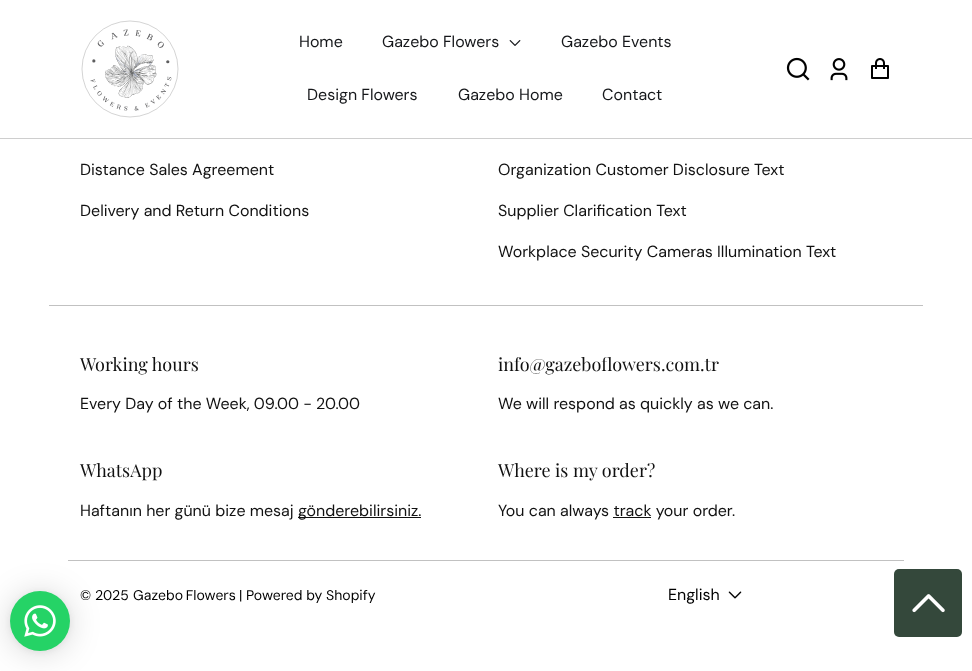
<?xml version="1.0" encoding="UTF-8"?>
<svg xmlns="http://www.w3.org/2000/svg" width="972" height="671">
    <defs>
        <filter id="blur1" x="-50%" y="-200%" width="200%" height="500%"><feGaussianBlur stdDeviation="16"/></filter>
        <filter id="blur2" x="-50%" y="-200%" width="200%" height="500%"><feGaussianBlur stdDeviation="3"/></filter>
    </defs>
    <rect width="100%" height="100%" fill="#FFFFFF"/>
    <rect x="0" y="138" width="972" height="1" fill="#CECECE"/>
    <image x="81" y="20" width="98" height="98" href="img_01.png"/>
    <text x="299" y="47" font-family="DM Sans" font-size="16" fill="#15171A">Home</text>
    <text x="382" y="47" font-family="DM Sans" font-size="16" fill="#15171A">Gazebo Flowers</text>
    <image x="509" y="40" width="12" height="6" href="img_02.png"/>
    <text x="561" y="47" font-family="DM Sans" font-size="16" fill="#15171A">Gazebo Events</text>
    <text x="307" y="100" font-family="DM Sans" font-size="16" fill="#15171A">Design Flowers</text>
    <text x="458" y="100" font-family="DM Sans" font-size="16" fill="#15171A">Gazebo Home</text>
    <text x="602" y="100" font-family="DM Sans" font-size="16" fill="#15171A">Contact</text>
    <image x="786" y="57" width="24" height="24" href="img_03.png"/>
    <image x="830" y="58" width="18" height="23" href="img_04.png"/>
    <image x="871" y="58" width="18" height="21" href="img_05.png"/>
    <rect x="68" y="560" width="836" height="1" fill="#C1C1C1"/>
    <rect x="10" y="593" width="60" height="60" rx="30" fill="#000000" fill-opacity="0.16" filter="url(#blur1)"/>
    <rect x="10" y="592" width="60" height="60" rx="30" fill="#000000" fill-opacity="0.06" filter="url(#blur2)"/>
    <circle cx="40" cy="621" r="30" fill="#25D366"/>
    <image x="24" y="605" width="32" height="32" href="img_06.png"/>
    <text x="80" y="175" font-family="DM Sans" font-size="16" fill="#111111">Distance Sales Agreement</text>
    <text x="80" y="216" font-family="DM Sans" font-size="16" fill="#111111">Delivery and Return Conditions</text>
    <text x="498" y="175" font-family="DM Sans" font-size="16" fill="#111111">Organization Customer Disclosure Text</text>
    <text x="498" y="216" font-family="DM Sans" font-size="16" fill="#111111">Supplier Clarification Text</text>
    <text x="498" y="257" font-family="DM Sans" font-size="16" fill="#111111">Workplace Security Cameras Illumination Text</text>
    <rect x="49" y="305" width="874" height="1" fill="#C1C1C1"/>
    <text x="80" y="371" font-family="Playfair Display" font-size="18" fill="#111111">Working hours</text>
    <text x="80" y="409" font-family="DM Sans" font-size="16" fill="#111111">Every Day of the Week, 09.00 - 20.00</text>
    <text x="498" y="371" font-family="Playfair Display" font-size="18" fill="#111111">info@gazeboflowers.com.tr</text>
    <text x="498" y="409" font-family="DM Sans" font-size="16" fill="#111111">We will respond as quickly as we can.</text>
    <text x="80" y="477" font-family="Playfair Display" font-size="18" fill="#111111">WhatsApp</text>
    <text x="80" y="516" font-family="DM Sans" font-size="16" fill="#111111">Haftanın her günü bize mesaj</text>
    <rect x="298" y="517" width="123" height="1" fill="#111111"/>
    <text x="298" y="516" font-family="DM Sans" font-size="16" fill="#111111">gönderebilirsiniz.</text>
    <text x="498" y="477" font-family="Playfair Display" font-size="18" fill="#111111">Where is my order?</text>
    <text x="498" y="516" font-family="DM Sans" font-size="16" fill="#111111">You can always track your order.</text>
    <rect x="613" y="517" width="38" height="1" fill="#111111"/>
    <text x="80" y="600" font-family="'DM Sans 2'" font-size="14" fill="#000000">© 2025</text>
    <text x="133" y="600" word-spacing="-1" font-family="'DM Sans 2'" font-size="14" fill="#000000">Gazebo Flowers</text>
    <text x="239" y="600" font-family="'DM Sans 2'" font-size="14" fill="#000000">| Powered by Shopify</text>
    <text x="668" y="600" font-family="DM Sans" font-size="16" fill="#000000">English</text>
    <image x="728" y="591" width="14" height="8" href="img_07.png"/>
    <rect x="894" y="569" width="68" height="68" rx="5" fill="#34483B"/>
    <image x="912" y="594" width="33" height="19" href="img_08.png"/>
</svg>
